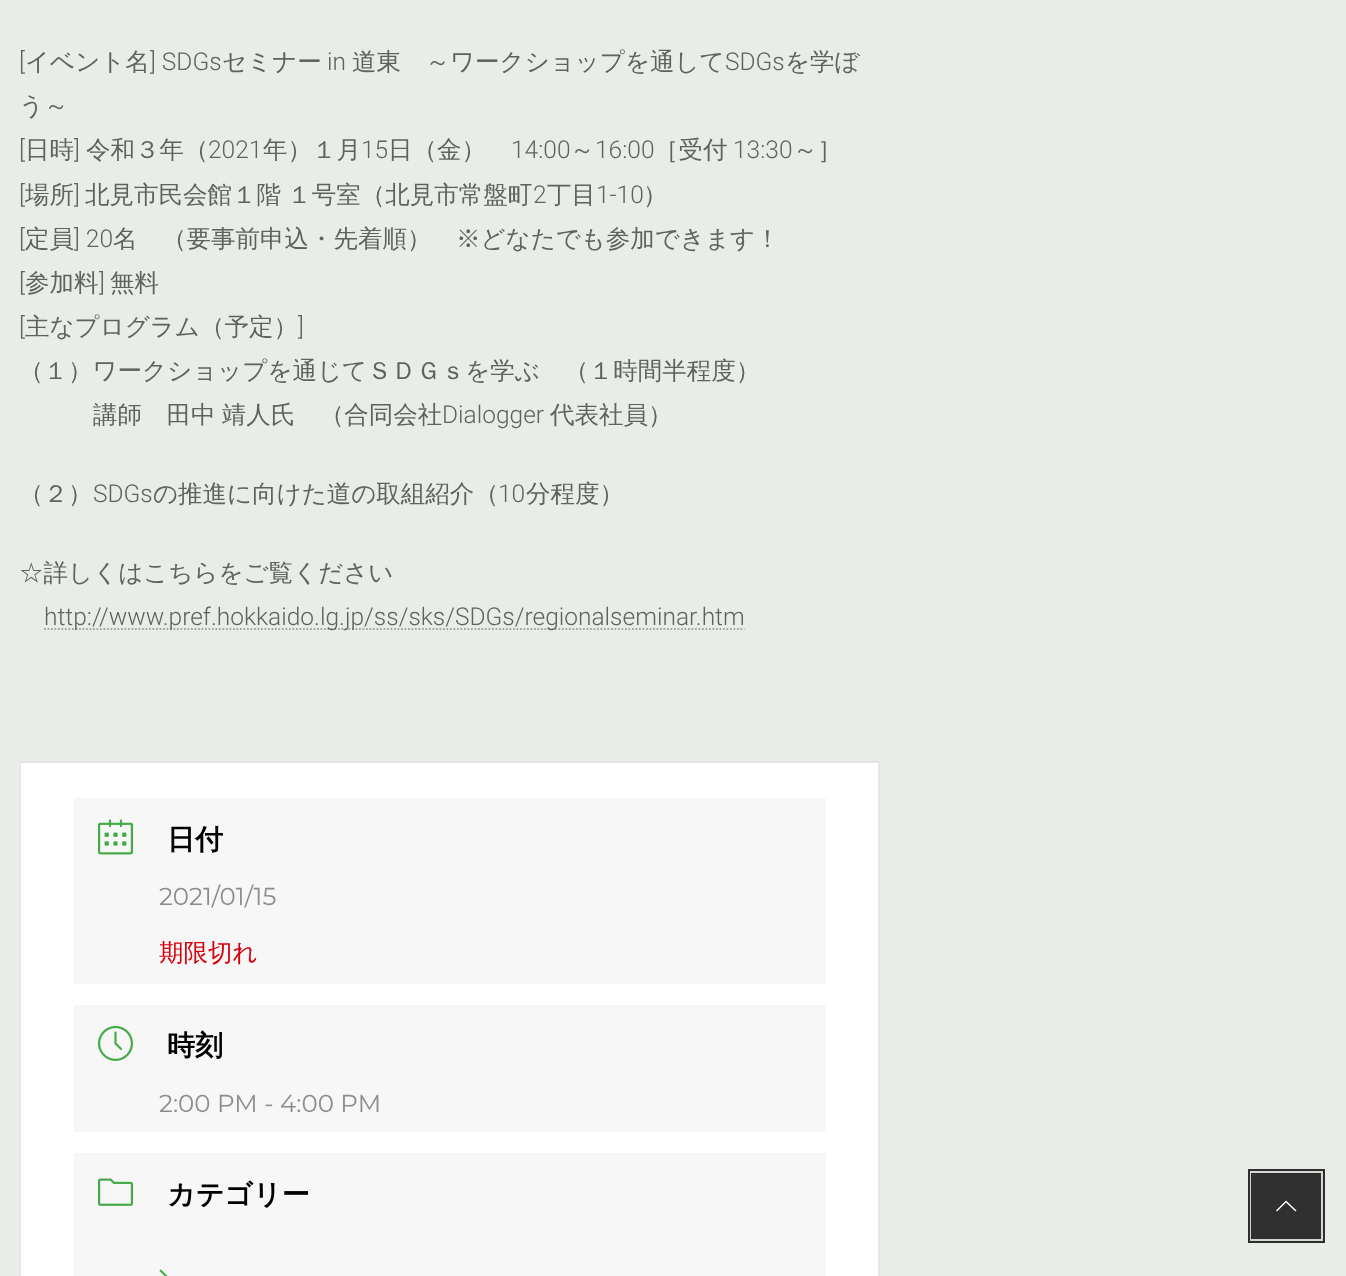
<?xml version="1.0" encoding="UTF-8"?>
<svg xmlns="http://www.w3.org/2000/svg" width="1346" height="1276">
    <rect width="100%" height="100%" fill="#E9EDE8"/>
    <text x="19" y="70" font-family="Roboto" font-size="24.5" font-weight="300" fill="#616161">[</text>
    <text x="25" y="70" font-family="WenQuanYi Zen Hei" font-size="24.5" font-weight="500" fill="#616161">イベント名</text>
    <text x="150" y="70" font-family="Roboto" font-size="24.5" font-weight="300" fill="#616161">] SDGs</text>
    <text x="222" y="70" font-family="WenQuanYi Zen Hei" font-size="24.5" font-weight="500" fill="#616161">セミナー</text>
    <text x="327" y="70" font-family="Roboto" font-size="24.5" font-weight="300" fill="#616161">in</text>
    <text x="352" y="70" font-family="WenQuanYi Zen Hei" font-size="24.5" font-weight="500" fill="#616161">道東　～ワークショップを通して</text>
    <text x="725" y="70" font-family="Roboto" font-size="24.5" font-weight="300" fill="#616161">SDGs</text>
    <text x="785" y="70" font-family="WenQuanYi Zen Hei" font-size="24.5" font-weight="500" fill="#616161">を学ぼ</text>
    <text x="19" y="114" font-family="WenQuanYi Zen Hei" font-size="24.5" font-weight="500" fill="#616161">う～</text>
    <text x="19" y="158" font-family="Roboto" font-size="24.5" font-weight="300" fill="#616161">[</text>
    <text x="25" y="158" font-family="WenQuanYi Zen Hei" font-size="24.5" font-weight="500" fill="#616161">日時</text>
    <text x="74" y="158" font-family="Roboto" font-size="24.5" font-weight="300" fill="#616161">]</text>
    <text x="86" y="158" font-family="WenQuanYi Zen Hei" font-size="24.5" font-weight="500" fill="#616161">令和３年（</text>
    <text x="208" y="158" font-family="Roboto" font-size="24.5" font-weight="300" fill="#616161">2021</text>
    <text x="263" y="158" font-family="WenQuanYi Zen Hei" font-size="24.5" font-weight="500" fill="#616161">年）１月</text>
    <text x="361" y="158" font-family="Roboto" font-size="24.5" font-weight="300" fill="#616161">15</text>
    <text x="388" y="158" font-family="WenQuanYi Zen Hei" font-size="24.5" font-weight="500" fill="#616161">日（金）</text>
    <text x="511" y="158" font-family="Roboto" font-size="24.5" font-weight="300" fill="#616161">14:00</text>
    <text x="570" y="158" font-family="WenQuanYi Zen Hei" font-size="24.5" font-weight="500" fill="#616161">～</text>
    <text x="595" y="158" font-family="Roboto" font-size="24.5" font-weight="300" fill="#616161">16:00</text>
    <text x="654" y="158" font-family="WenQuanYi Zen Hei" font-size="24.5" font-weight="500" fill="#616161">［受付</text>
    <text x="733" y="158" font-family="Roboto" font-size="24.5" font-weight="300" fill="#616161">13:30</text>
    <text x="793" y="158" font-family="WenQuanYi Zen Hei" font-size="24.5" font-weight="500" fill="#616161">～］</text>
    <text x="19" y="203" font-family="Roboto" font-size="24.5" font-weight="300" fill="#616161">[</text>
    <text x="25" y="203" font-family="WenQuanYi Zen Hei" font-size="24.5" font-weight="500" fill="#616161">場所</text>
    <text x="74" y="203" font-family="Roboto" font-size="24.5" font-weight="300" fill="#616161">]</text>
    <text x="85" y="203" word-spacing="-1" font-family="WenQuanYi Zen Hei" font-size="24.5" font-weight="500" fill="#616161">北見市民会館１階 １号室（北見市常盤町</text>
    <text x="533" y="203" font-family="Roboto" font-size="24.5" font-weight="300" fill="#616161">2</text>
    <text x="547" y="203" font-family="WenQuanYi Zen Hei" font-size="24.5" font-weight="500" fill="#616161">丁目</text>
    <text x="596" y="203" font-family="Roboto" font-size="24.5" font-weight="300" fill="#616161">1-10</text>
    <text x="643" y="203" font-family="WenQuanYi Zen Hei" font-size="24.5" font-weight="500" fill="#616161">）</text>
    <text x="19" y="247" font-family="Roboto" font-size="24.5" font-weight="300" fill="#616161">[</text>
    <text x="25" y="247" font-family="WenQuanYi Zen Hei" font-size="24.5" font-weight="500" fill="#616161">定員</text>
    <text x="74" y="247" font-family="Roboto" font-size="24.5" font-weight="300" fill="#616161">] 20</text>
    <text x="113" y="247" font-family="WenQuanYi Zen Hei" font-size="24.5" font-weight="500" fill="#616161">名　（要事前申込・先着順）　※どなたでも参加できます！</text>
    <text x="19" y="291" font-family="Roboto" font-size="24.5" font-weight="300" fill="#616161">[</text>
    <text x="25" y="291" font-family="WenQuanYi Zen Hei" font-size="24.5" font-weight="500" fill="#616161">参加料</text>
    <text x="99" y="291" font-family="Roboto" font-size="24.5" font-weight="300" fill="#616161">]</text>
    <text x="110" y="291" font-family="WenQuanYi Zen Hei" font-size="24.5" font-weight="500" fill="#616161">無料</text>
    <text x="19" y="335" font-family="Roboto" font-size="24.5" font-weight="300" fill="#616161">[</text>
    <text x="25" y="335" font-family="WenQuanYi Zen Hei" font-size="24.5" font-weight="500" fill="#616161">主なプログラム（予定）</text>
    <text x="298" y="335" font-family="Roboto" font-size="24.5" font-weight="300" fill="#616161">]</text>
    <text x="19" y="379" font-family="WenQuanYi Zen Hei" font-size="24.5" font-weight="500" fill="#616161">（１）ワークショップを通じてＳＤＧｓを学ぶ　（１時間半程度）</text>
    <text x="93" y="423" word-spacing="-1" font-family="WenQuanYi Zen Hei" font-size="24.5" font-weight="500" fill="#616161">講師　田中 靖人氏　（合同会社</text>
    <text x="442" y="423" font-family="Roboto" font-size="24.5" font-weight="300" fill="#616161">Dialogger</text>
    <text x="550" y="423" font-family="WenQuanYi Zen Hei" font-size="24.5" font-weight="500" fill="#616161">代表社員）</text>
    <text x="19" y="502" font-family="WenQuanYi Zen Hei" font-size="24.5" font-weight="500" fill="#616161">（２）</text>
    <text x="93" y="502" font-family="Roboto" font-size="24.5" font-weight="300" fill="#616161">SDGs</text>
    <text x="153" y="502" font-family="WenQuanYi Zen Hei" font-size="24.5" font-weight="500" fill="#616161">の推進に向けた道の取組紹介（</text>
    <text x="498" y="502" font-family="Roboto" font-size="24.5" font-weight="300" fill="#616161">10</text>
    <text x="526" y="502" font-family="WenQuanYi Zen Hei" font-size="24.5" font-weight="500" fill="#616161">分程度）</text>
    <text x="19" y="581" font-family="WenQuanYi Zen Hei" font-size="24.5" font-weight="500" fill="#616161">☆詳しくはこちらをご覧ください</text>
    <path d="M 44 629 H 744.5" fill="none" stroke="#A3A6A2" stroke-width="1.8" stroke-dasharray="1.75 1.75"/>
    <text x="44" y="625" font-family="Roboto" font-size="24.5" font-weight="300" fill="#616161">http://www.pref.hokkaido.lg.jp/ss/sks/SDGs/regionalseminar.htm</text>
    <rect x="20" y="762" width="859" height="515" fill="#FFFFFF" stroke="#E6E6E6" stroke-width="2"/>
    <rect x="74" y="798" width="752" height="186" fill="#F7F7F7"/>
    <image x="98" y="819" width="35" height="36" href="img_01.png"/>
    <text x="167" y="849" font-family="WenQuanYi Zen Hei" font-size="28" font-weight="700" fill="#000000">日付</text>
    <text x="159" y="905" font-family="Montserrat" font-size="24.5" fill="#8D8D8D">2021/01/15</text>
    <text x="159" y="961" font-family="WenQuanYi Zen Hei" font-size="24.5" font-weight="500" fill="#D8000C">期限切れ</text>
    <rect x="74" y="1005" width="752" height="127" fill="#F7F7F7"/>
    <image x="98" y="1025" width="35" height="36" href="img_02.png"/>
    <text x="167" y="1055" font-family="WenQuanYi Zen Hei" font-size="28" font-weight="700" fill="#000000">時刻</text>
    <text x="159" y="1112" font-family="Montserrat" font-size="24.5" fill="#8D8D8D">2:00 PM - 4:00 PM</text>
    <rect x="74" y="1153" width="752" height="123" fill="#F7F7F7"/>
    <image x="98" y="1178" width="35" height="28" href="img_03.png"/>
    <text x="167" y="1204" font-family="WenQuanYi Zen Hei" font-size="28" font-weight="700" fill="#000000">カテゴリー</text>
    <image x="159" y="1269" width="9" height="7" href="img_04.png"/>
    <rect x="1250" y="1171" width="73" height="70" fill="none" stroke="#2F2F2E" stroke-width="4"/>
    <rect x="1251" y="1172" width="71" height="68" fill="none" stroke="#D5D5D5" stroke-width="2"/>
    <rect x="1251" y="1173" width="70" height="66" fill="#000000" fill-opacity="0.8"/>
    <path d="M 1296.5 1210.5 L 1295.5 1211.5 L 1286 1202.5 L 1277 1211.5 L 1276 1210.5 L 1286 1200.5 Z" fill="#FFFFFF"/>
</svg>
